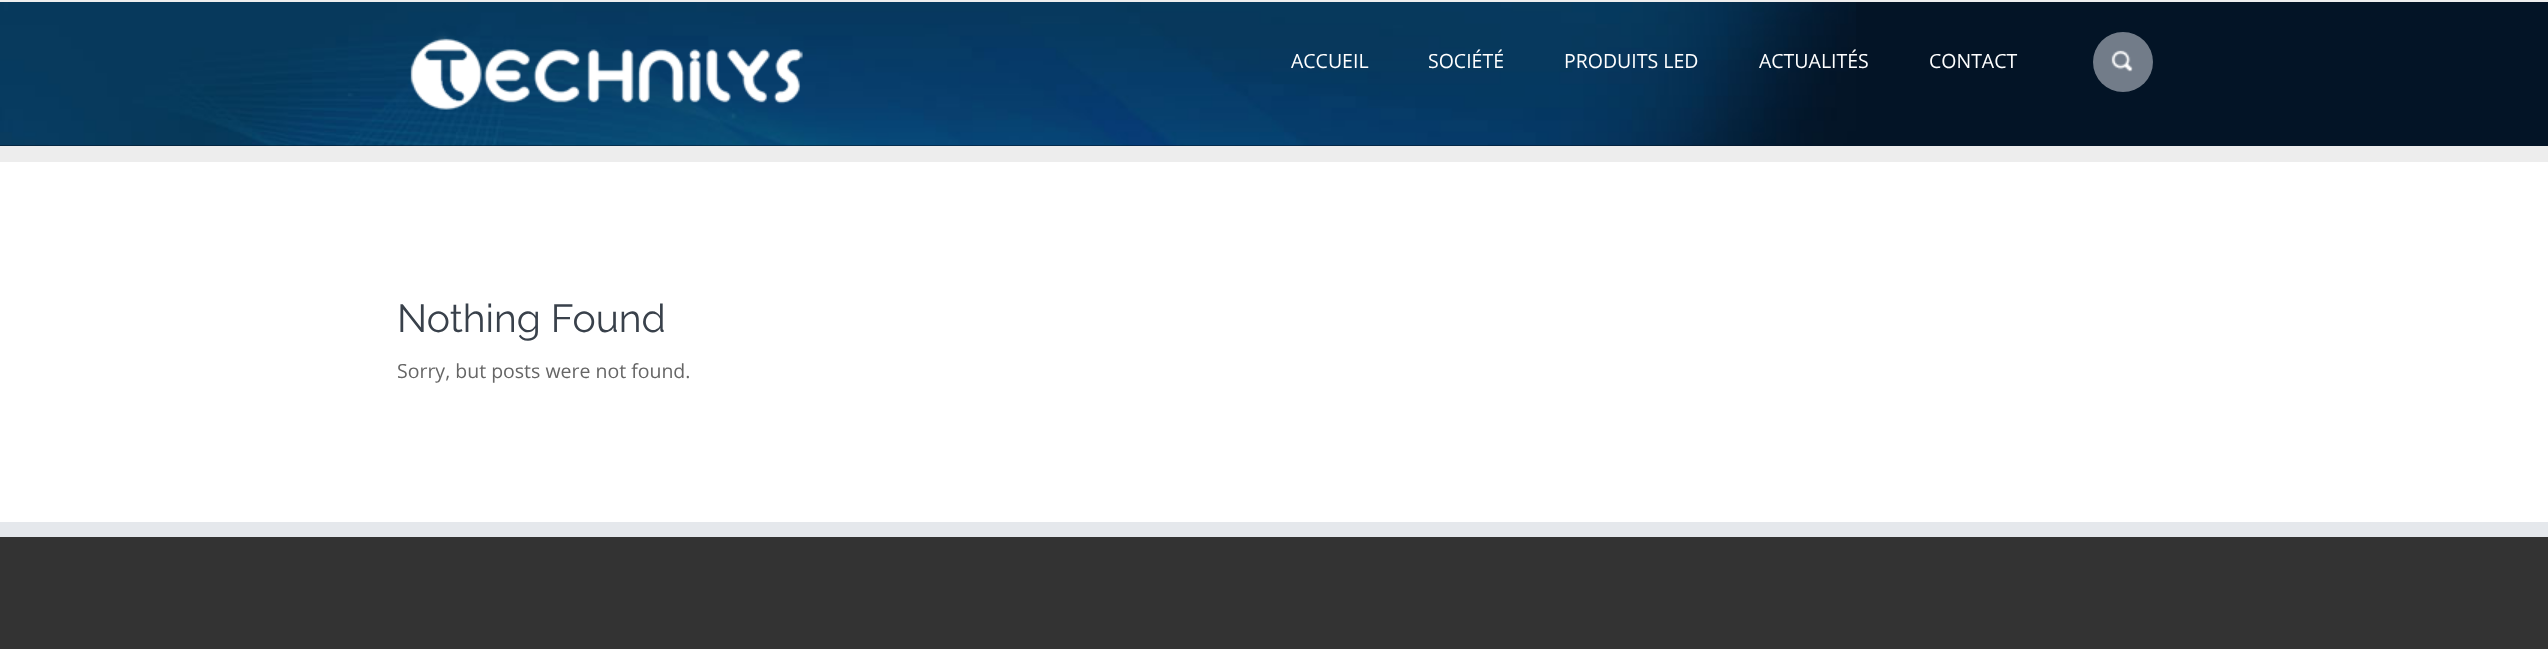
<?xml version="1.0" encoding="UTF-8"?>
<svg xmlns="http://www.w3.org/2000/svg" width="2548" height="649">
    <rect width="100%" height="100%" fill="#FFFFFF"/>
    <rect x="0" y="2" width="2548" height="144" fill="#031426"/>
    <image x="0" y="2" width="1856" height="144" href="img_01.png"/>
    <rect x="0" y="0" width="2548" height="2" fill="#EEEEEE"/>
    <image x="410" y="38" width="393" height="72" href="img_02.png"/>
    <text x="1291" y="68" font-family="Open Sans" font-size="19.5" fill="#FFFFFF">ACCUEIL</text>
    <text x="1428" y="68" font-family="Open Sans" font-size="19.5" fill="#FFFFFF">SOCIÉTÉ</text>
    <text x="1564" y="68" font-family="Open Sans" font-size="19.5" fill="#FFFFFF">PRODUITS LED</text>
    <text x="1759" y="68" font-family="Open Sans" font-size="19.5" fill="#FFFFFF">ACTUALITÉS</text>
    <text x="1929" y="68" font-family="Open Sans" font-size="19.5" fill="#FFFFFF">CONTACT</text>
    <circle cx="2123" cy="62" r="30" fill="#727C89"/>
    <image x="2111" y="50" width="22" height="22" href="img_03.png"/>
    <rect x="0" y="146" width="2548" height="16" fill="#EDEDED"/>
    <text x="397" y="332" font-family="Raleway" font-size="39" font-weight="100" fill="#39414B">Nothing Found</text>
    <text x="397" y="378" font-family="Open Sans" font-size="19.5" fill="#666666">Sorry, but posts were not found.</text>
    <rect x="0" y="537" width="2548" height="112" fill="#333333"/>
    <rect x="0" y="522" width="2548" height="15" fill="#E5E8EC"/>
</svg>
